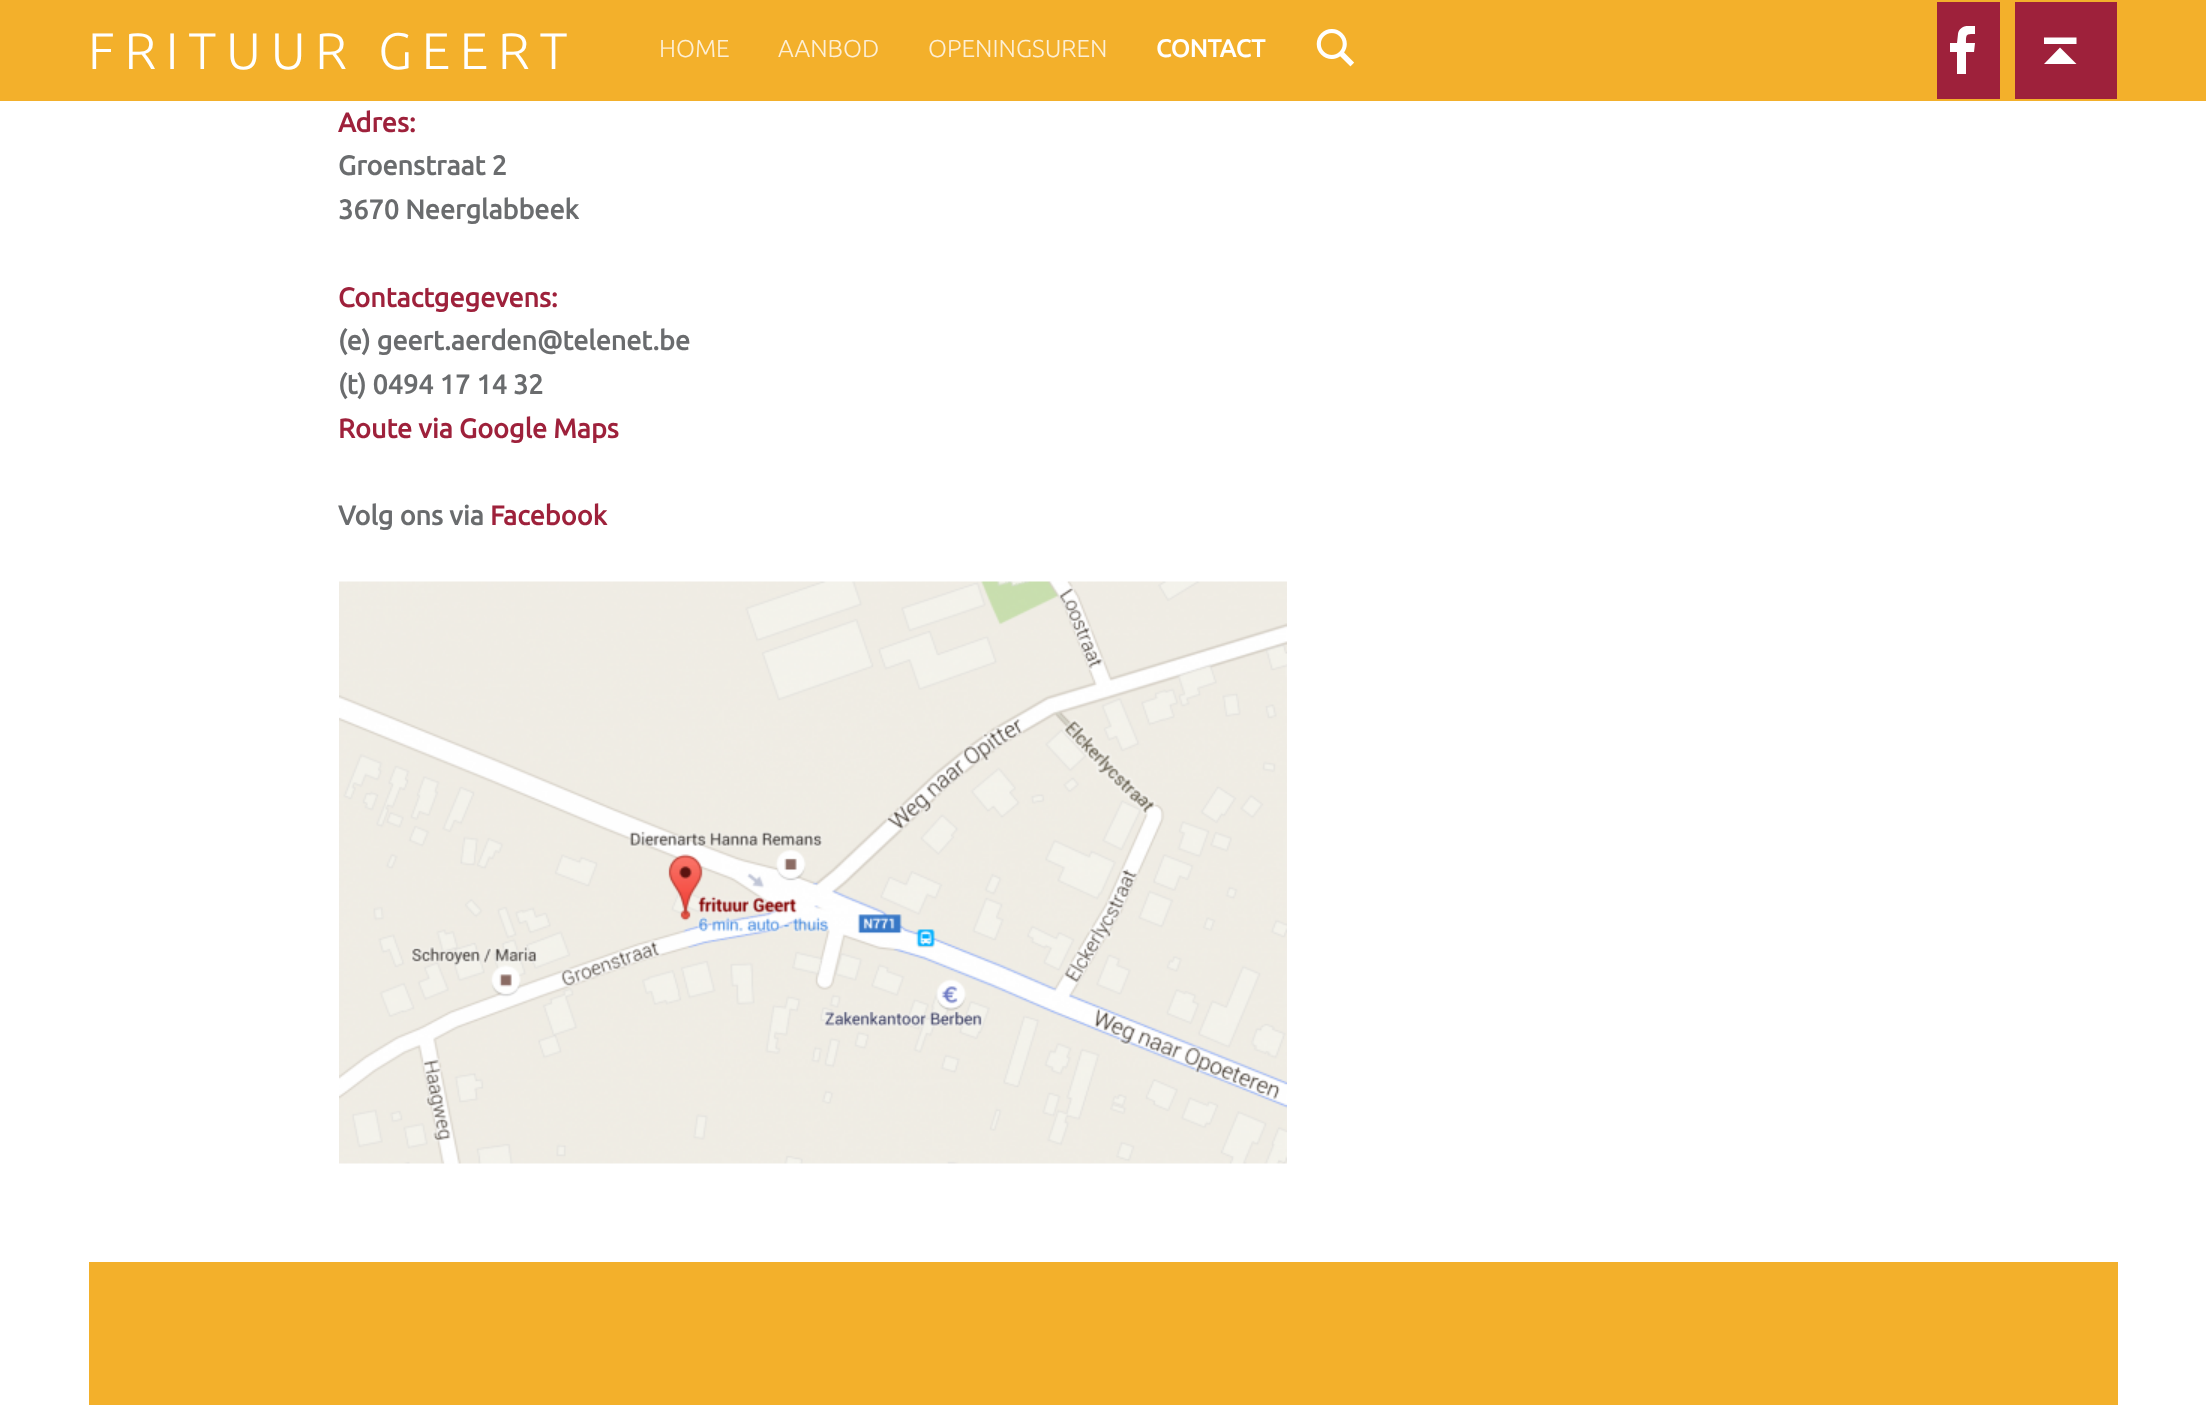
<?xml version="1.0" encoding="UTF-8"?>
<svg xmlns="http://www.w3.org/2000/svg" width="2206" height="1405">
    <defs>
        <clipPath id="clip1"><rect x="1937" y="26" width="52" height="52"/></clipPath>
    </defs>
    <rect width="100%" height="100%" fill="#FFFFFF"/>
    <rect x="0" y="0" width="2206" height="101" fill="#F3B02B"/>
    <text x="88" y="69" font-family="Ubuntu" font-size="51.25" font-weight="300" letter-spacing="9.75" fill="#FFFFFF">FRITUUR GEERT</text>
    <text x="659" y="57" font-family="Ubuntu" font-size="24.5" font-weight="300" fill="#FDEFD5">HOME</text>
    <text x="778" y="57" font-family="Ubuntu" font-size="24.5" font-weight="300" fill="#FDEFD5">AANBOD</text>
    <text x="928" y="57" font-family="Ubuntu" font-size="24.5" font-weight="300" fill="#FDEFD5">OPENINGSUREN</text>
    <text x="1156" y="57" font-family="Ubuntu" font-size="24.5" font-weight="700" fill="#FFFFFF">CONTACT</text>
    <image x="1316" y="29" width="39" height="38" href="img_01.png"/>
    <rect x="1937" y="2" width="63" height="97" fill="#9E213B"/>
    <g clip-path="url(#clip1)">
        <path d="M 1975 26 V 34 C 1966 34 1966 34 1966 43 H 1975 L 1974 52 H 1966 V 74 H 1957 V 52 H 1950 V 43 H 1957 L 1958 34 C 1959 26 1968 25 1975 26 Z" fill="#FFFFFF"/>
    </g>
    <rect x="2015" y="2" width="102" height="97" fill="#9E213B"/>
    <path d="M 2044 64 L 2060 47.5 L 2076.5 64 Z M 2044 37.5 H 2076.5 V 44 H 2044 Z" fill="#FFFFFF"/>
    <text x="338" y="132" font-family="Ubuntu" font-size="27" font-weight="700" fill="#9E213B">Adres:</text>
    <text font-family="Ubuntu" font-size="27" font-weight="700" fill="#6A6C6E">
        <tspan x="338" y="175">Groenstraat 2</tspan>
        <tspan x="338" y="219">3670 Neerglabbeek</tspan>
    </text>
    <text x="338" y="307" font-family="Ubuntu" font-size="27" font-weight="700" fill="#9E213B">Contactgegevens:</text>
    <text font-family="Ubuntu" font-size="27" font-weight="700" fill="#6A6C6E">
        <tspan x="338" y="350">(e) geert.aerden@telenet.be</tspan>
        <tspan x="338" y="394">(t) 0494 17 14 32</tspan>
    </text>
    <text x="338" y="438" font-family="Ubuntu" font-size="27" font-weight="700" fill="#9E213B">Route via Google Maps</text>
    <text x="338" y="525" font-family="Ubuntu" font-size="27" font-weight="700" fill="#6A6C6E">Volg ons via</text>
    <text x="490" y="525" font-family="Ubuntu" font-size="27" font-weight="700" fill="#9E213B">Facebook</text>
    <image x="339" y="581" width="948" height="583" href="img_02.png"/>
    <rect x="89" y="1262" width="2029" height="143" fill="#F3B02B"/>
</svg>
